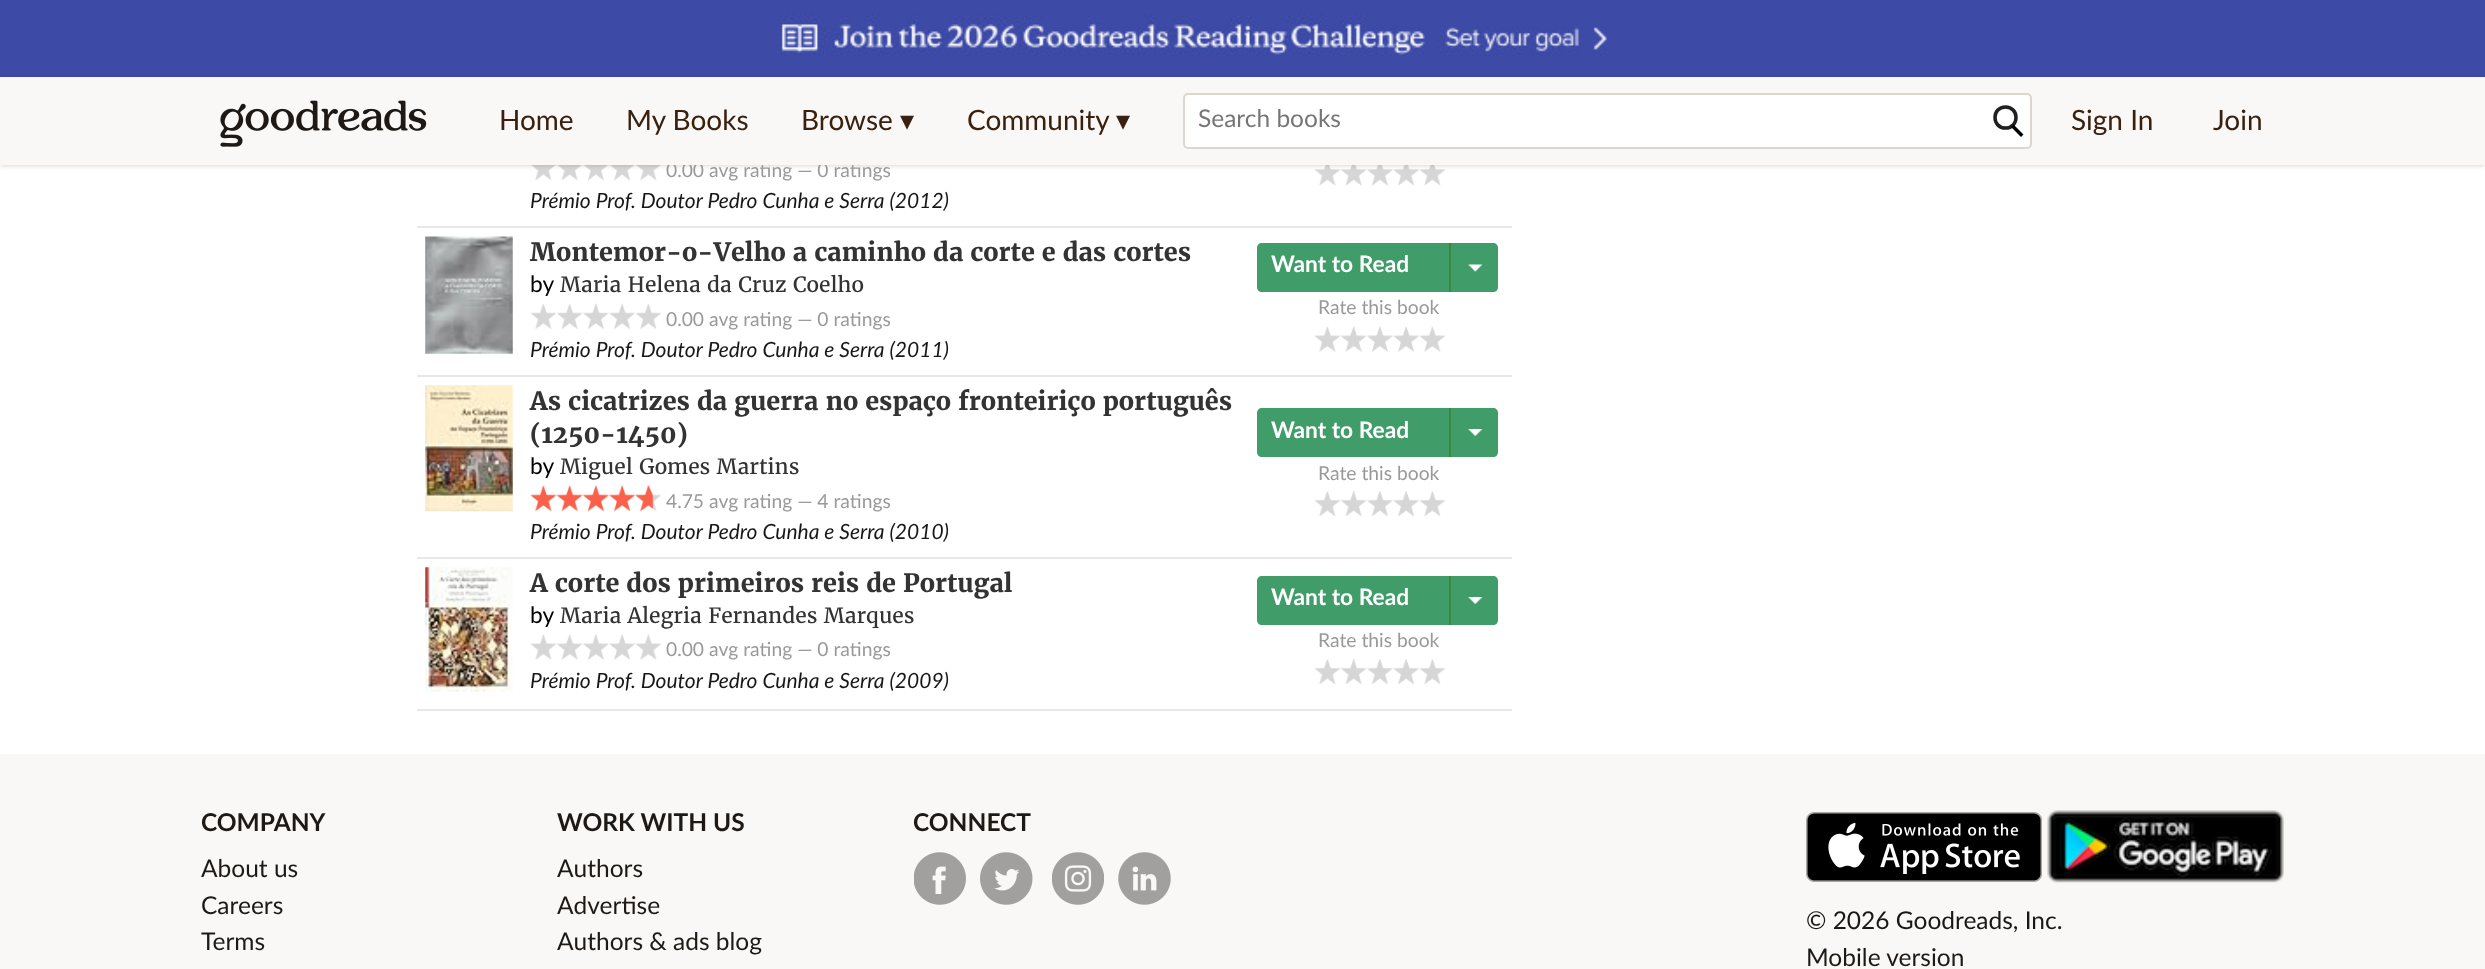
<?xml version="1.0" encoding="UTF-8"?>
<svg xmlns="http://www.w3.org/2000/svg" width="2485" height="969">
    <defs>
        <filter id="blur1" x="-50%" y="-200%" width="200%" height="500%"><feGaussianBlur stdDeviation="2"/></filter>
    </defs>
    <rect width="100%" height="100%" fill="#FFFFFF"/>
    <rect x="0" y="0" width="2485" height="77" fill="#3D4AA6"/>
    <image x="780" y="14" width="827" height="42" href="img_01.png"/>
    <image x="531" y="165" width="25" height="16" href="img_03.png"/>
    <image x="557" y="165" width="25" height="16" href="img_04.png"/>
    <image x="583" y="165" width="26" height="16" href="img_05.png"/>
    <image x="609" y="165" width="26" height="16" href="img_06.png"/>
    <image x="636" y="165" width="25" height="16" href="img_03.png"/>
    <image x="1314" y="165" width="27" height="21" href="img_07.png"/>
    <image x="1340" y="165" width="27" height="21" href="img_08.png"/>
    <image x="1367" y="165" width="26" height="21" href="img_09.png"/>
    <image x="1393" y="165" width="26" height="21" href="img_10.png"/>
    <image x="1419" y="165" width="26" height="21" href="img_11.png"/>
    <rect x="0" y="79" width="2485" height="87" fill="#000000" fill-opacity="0.15" filter="url(#blur1)"/>
    <text x="666" y="177" font-family="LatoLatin" font-size="19.25" fill="#999999">0.00 avg rating — 0 ratings</text>
    <rect x="0" y="77" width="2485" height="88" fill="#FAF8F6"/>
    <image x="220" y="100" width="207" height="47" href="img_02.png"/>
    <text x="499" y="130" font-family="LatoLatin" font-size="28" fill="#382110">Home</text>
    <text x="626" y="130" font-family="LatoLatin" font-size="28" fill="#382110">My Books</text>
    <text x="801" y="130" font-family="LatoLatin" font-size="28" fill="#382110">Browse</text>
    <text x="900" y="130" font-family="DejaVu Sans" font-size="28" fill="#382110">▾</text>
    <text x="967" y="130" font-family="LatoLatin" font-size="28" fill="#382110">Community</text>
    <text x="1116" y="130" font-family="DejaVu Sans" font-size="28" fill="#382110">▾</text>
    <rect x="1184" y="94" width="847" height="54" rx="4" fill="#FFFFFF" stroke="#DCD6CC" stroke-width="2"/>
    <text x="1198" y="127" font-family="LatoLatin" font-size="24.5" fill="#767676">Search books</text>
    <path d="M 2005.5 128 C 2019.5 128 2019.5 107 2005.5 107 C 1991.5 107 1991.5 128 2005.5 128 Z" fill="none" stroke="#202020" stroke-width="3.5"/>
    <path d="M 2013.5 127 L 2021 134.5" fill="none" stroke="#000000" stroke-width="3.5" stroke-linecap="square"/>
    <text x="2071" y="130" font-family="LatoLatin" font-size="28" fill="#382110">Sign In</text>
    <text x="2213" y="130" font-family="LatoLatin" font-size="28" fill="#382110">Join</text>
    <text x="530" y="208" font-family="LatoLatin" font-size="21" font-style="italic" fill="#181818">Prémio Prof. Doutor Pedro Cunha e Serra (2012)</text>
    <rect x="417" y="226" width="1095" height="2" fill="#E8E8E8"/>
    <image x="425" y="236" width="88" height="118" href="img_12.png"/>
    <text x="530" y="261" font-family="Merriweather" font-size="25.2" font-weight="700" fill="#333333">Montemor-o-Velho a caminho da corte e das cortes</text>
    <text x="530" y="292" font-family="LatoLatin" font-size="22.75" fill="#000000">by</text>
    <text x="560" y="292" font-family="Merriweather" font-size="21" fill="#333333">Maria Helena da Cruz Coelho</text>
    <image x="530" y="303" width="26" height="26" href="img_13.png"/>
    <image x="557" y="303" width="26" height="26" href="img_14.png"/>
    <image x="583" y="303" width="26" height="26" href="img_15.png"/>
    <image x="609" y="303" width="26" height="27" href="img_16.png"/>
    <image x="635" y="303" width="26" height="26" href="img_13.png"/>
    <text x="666" y="326" font-family="LatoLatin" font-size="19.25" fill="#999999">0.00 avg rating — 0 ratings</text>
    <text x="530" y="357" font-family="LatoLatin" font-size="21" font-style="italic" fill="#181818">Prémio Prof. Doutor Pedro Cunha e Serra (2011)</text>
    <rect x="417" y="375" width="1095" height="2" fill="#E8E8E8"/>
    <path d="M 1262 243 H 1449 V 292 H 1262 C 1259 292 1257 290 1257 287 V 248 C 1257 245 1259 243 1262 243 Z" fill="#409D69"/>
    <text x="1271" y="272" font-family="LatoLatin" font-size="22.75" font-weight="700" fill="#FFFFFF">Want to Read</text>
    <path d="M 1449 243 H 1493 C 1496 243 1498 245 1498 248 V 287 C 1498 290 1496 292 1493 292 H 1449 Z" fill="#409D69"/>
    <rect x="1449" y="243" width="2" height="49" fill="#38883D"/>
    <image x="1468" y="264" width="15" height="8" href="img_17.png"/>
    <text x="1318" y="314" font-family="LatoLatin" font-size="19.25" fill="#999999">Rate this book</text>
    <image x="1314" y="326" width="27" height="26" href="img_18.png"/>
    <image x="1340" y="326" width="27" height="26" href="img_19.png"/>
    <image x="1367" y="326" width="26" height="26" href="img_20.png"/>
    <image x="1393" y="326" width="26" height="26" href="img_21.png"/>
    <image x="1419" y="326" width="26" height="26" href="img_22.png"/>
    <image x="425" y="385" width="88" height="127" href="img_23.png"/>
    <text font-family="Merriweather" font-size="25.2" font-weight="700" fill="#333333">
        <tspan x="530" y="410">As cicatrizes da guerra no espaço fronteiriço português</tspan>
        <tspan x="530" y="443">(1250-1450)</tspan>
    </text>
    <text x="530" y="474" font-family="LatoLatin" font-size="22.75" fill="#000000">by</text>
    <text x="560" y="474" font-family="Merriweather" font-size="21" fill="#333333">Miguel Gomes Martins</text>
    <image x="530" y="485" width="27" height="27" href="img_24.png"/>
    <image x="556" y="485" width="27" height="27" href="img_25.png"/>
    <image x="582" y="485" width="27" height="27" href="img_26.png"/>
    <image x="609" y="485" width="27" height="27" href="img_27.png"/>
    <image x="635" y="485" width="26" height="27" href="img_28.png"/>
    <text x="666" y="508" font-family="LatoLatin" font-size="19.25" fill="#999999">4.75 avg rating — 4 ratings</text>
    <text x="530" y="539" font-family="LatoLatin" font-size="21" font-style="italic" fill="#181818">Prémio Prof. Doutor Pedro Cunha e Serra (2010)</text>
    <rect x="417" y="557" width="1095" height="2" fill="#E8E8E8"/>
    <path d="M 1262 408 H 1449 V 457 H 1262 C 1259 457 1257 455 1257 452 V 413 C 1257 410 1259 408 1262 408 Z" fill="#409D69"/>
    <text x="1271" y="438" font-family="LatoLatin" font-size="22.75" font-weight="700" fill="#FFFFFF">Want to Read</text>
    <path d="M 1449 408 H 1493 C 1496 408 1498 410 1498 413 V 452 C 1498 455 1496 457 1493 457 H 1449 Z" fill="#409D69"/>
    <rect x="1449" y="408" width="2" height="49" fill="#38883D"/>
    <image x="1468" y="429" width="15" height="7" href="img_29.png"/>
    <text x="1318" y="480" font-family="LatoLatin" font-size="19.25" fill="#999999">Rate this book</text>
    <image x="1314" y="491" width="27" height="25" href="img_30.png"/>
    <image x="1340" y="491" width="27" height="25" href="img_31.png"/>
    <image x="1367" y="491" width="26" height="25" href="img_32.png"/>
    <image x="1393" y="491" width="26" height="26" href="img_33.png"/>
    <image x="1419" y="491" width="26" height="25" href="img_34.png"/>
    <image x="425" y="567" width="88" height="125" href="img_35.png"/>
    <text x="530" y="592" font-family="Merriweather" font-size="25.2" font-weight="700" fill="#333333">A corte dos primeiros reis de Portugal</text>
    <text x="530" y="623" font-family="LatoLatin" font-size="22.75" fill="#000000">by</text>
    <text x="560" y="623" font-family="Merriweather" font-size="21" fill="#333333">Maria Alegria Fernandes Marques</text>
    <image x="530" y="634" width="27" height="26" href="img_36.png"/>
    <image x="556" y="634" width="27" height="26" href="img_37.png"/>
    <image x="583" y="634" width="26" height="26" href="img_38.png"/>
    <image x="609" y="634" width="26" height="26" href="img_39.png"/>
    <image x="635" y="634" width="27" height="26" href="img_36.png"/>
    <text x="666" y="656" font-family="LatoLatin" font-size="19.25" fill="#999999">0.00 avg rating — 0 ratings</text>
    <text x="530" y="688" font-family="LatoLatin" font-size="21" font-style="italic" fill="#181818">Prémio Prof. Doutor Pedro Cunha e Serra (2009)</text>
    <rect x="417" y="709" width="1095" height="2" fill="#E8E8E8"/>
    <path d="M 1262 576 H 1449 V 625 H 1262 C 1259 625 1257 623 1257 620 V 581 C 1257 578 1259 576 1262 576 Z" fill="#409D69"/>
    <text x="1271" y="605" font-family="LatoLatin" font-size="22.75" font-weight="700" fill="#FFFFFF">Want to Read</text>
    <path d="M 1449 576 H 1493 C 1496 576 1498 578 1498 581 V 620 C 1498 623 1496 625 1493 625 H 1449 Z" fill="#409D69"/>
    <rect x="1449" y="576" width="2" height="49" fill="#38883D"/>
    <image x="1468" y="597" width="15" height="7" href="img_29.png"/>
    <text x="1318" y="647" font-family="LatoLatin" font-size="19.25" fill="#999999">Rate this book</text>
    <image x="1314" y="659" width="27" height="25" href="img_30.png"/>
    <image x="1340" y="659" width="27" height="25" href="img_31.png"/>
    <image x="1367" y="659" width="26" height="25" href="img_32.png"/>
    <image x="1393" y="659" width="26" height="26" href="img_33.png"/>
    <image x="1419" y="659" width="26" height="25" href="img_34.png"/>
    <rect x="0" y="754" width="2485" height="215" fill="#FAF8F6"/>
    <text x="201" y="831" font-family="LatoLatin" font-size="24.5" font-weight="700" fill="#1E1915">COMPANY</text>
    <text font-family="LatoLatin" font-size="24.5" fill="#1E1915">
        <tspan x="201" y="877">About us</tspan>
        <tspan x="201" y="914">Careers</tspan>
        <tspan x="201" y="950">Terms</tspan>
    </text>
    <text x="557" y="831" font-family="LatoLatin" font-size="24.5" font-weight="700" fill="#1E1915">WORK WITH US</text>
    <text font-family="LatoLatin" font-size="24.5" fill="#1E1915">
        <tspan x="557" y="877">Authors</tspan>
        <tspan x="557" y="914">Advertise</tspan>
        <tspan x="557" y="950">Authors &amp; ads blog</tspan>
    </text>
    <text x="913" y="831" font-family="LatoLatin" font-size="24.5" font-weight="700" fill="#1E1915">CONNECT</text>
    <image x="914" y="852" width="52" height="53" href="img_40.png"/>
    <image x="980" y="852" width="53" height="53" href="img_41.png"/>
    <image x="1052" y="852" width="52" height="53" href="img_42.png"/>
    <image x="1118" y="852" width="53" height="53" href="img_43.png"/>
    <image x="1806" y="812" width="236" height="70" href="img_44.png"/>
    <image x="2047" y="810" width="237" height="73" href="img_45.png"/>
    <text x="1806" y="929" font-family="LatoLatin" font-size="24.5" fill="#181818">© 2026 Goodreads, Inc.</text>
    <text x="1806" y="966" font-family="LatoLatin" font-size="24.5" fill="#1E1915">Mobile version</text>
</svg>
